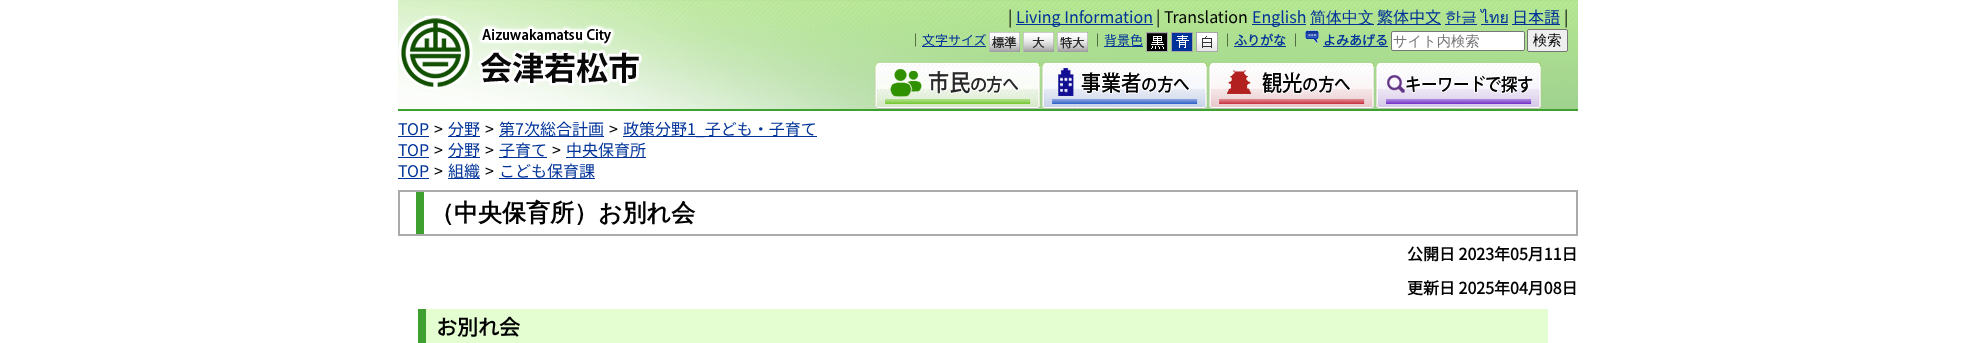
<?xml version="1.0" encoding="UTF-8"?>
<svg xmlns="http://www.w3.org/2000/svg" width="1976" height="343">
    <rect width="100%" height="100%" fill="#FFFFFF"/>
    <image x="398" y="0" width="1180" height="50" href="img_01.png"/>
    <text x="1008" y="23" font-family="Noto Sans JP" font-size="16" font-weight="100" fill="#000000">|</text>
    <rect x="1016" y="24" width="137" height="1" fill="#003399"/>
    <text x="1016" y="23" font-family="Noto Sans JP" font-size="16" font-weight="100" fill="#003399">Living Information</text>
    <text x="1156" y="23" font-family="Noto Sans JP" font-size="16" font-weight="100" fill="#000000">| Translation</text>
    <rect x="1252" y="24" width="54" height="1" fill="#003399"/>
    <text x="1252" y="23" font-family="Noto Sans JP" font-size="16" font-weight="100" fill="#003399">English</text>
    <rect x="1310" y="24" width="64" height="1" fill="#003399"/>
    <text x="1310" y="23" font-family="WenQuanYi Zen Hei" font-size="16" font-weight="500" fill="#003399">简体中文</text>
    <rect x="1377" y="24" width="64" height="1" fill="#003399"/>
    <text x="1377" y="23" font-family="Noto Sans JP" font-size="16" font-weight="100" fill="#003399">繁体中文</text>
    <rect x="1445" y="24" width="32" height="1" fill="#003399"/>
    <text x="1445" y="23" font-family="WenQuanYi Zen Hei" font-size="16" font-weight="500" fill="#003399">한글</text>
    <text x="1481" y="23" font-family="Loma" font-size="16" fill="#003399">ไทย</text>
    <rect x="1481" y="24" width="27" height="1" fill="#003399"/>
    <rect x="1512" y="24" width="48" height="1" fill="#003399"/>
    <text x="1512" y="23" font-family="Noto Sans JP" font-size="16" font-weight="100" fill="#003399">日本語</text>
    <text x="1564" y="23" font-family="Noto Sans JP" font-size="16" font-weight="100" fill="#000000">|</text>
    <text x="909" y="45" font-family="Noto Sans JP" font-size="13" font-weight="100" fill="#000000">｜</text>
    <rect x="922" y="46" width="64" height="1" fill="#003399"/>
    <text x="922" y="45" font-family="Noto Sans JP" font-size="13" font-weight="100" fill="#003399">文字サイズ</text>
    <image x="398" y="50" width="1180" height="59" href="img_09.png"/>
    <image x="989" y="32" width="31" height="20" href="img_02.png"/>
    <image x="1023" y="32" width="31" height="20" href="img_03.png"/>
    <image x="1057" y="32" width="31" height="20" href="img_04.png"/>
    <text x="1091" y="45" font-family="Noto Sans JP" font-size="13" font-weight="100" fill="#000000">｜</text>
    <rect x="1104" y="46" width="39" height="1" fill="#003399"/>
    <text x="1104" y="45" font-family="Noto Sans JP" font-size="13" font-weight="100" fill="#003399">背景色</text>
    <image x="1146" y="32" width="22" height="20" href="img_05.png"/>
    <image x="1171" y="32" width="22" height="20" href="img_06.png"/>
    <image x="1196" y="32" width="22" height="20" href="img_07.png"/>
    <text x="1221" y="45" font-family="Noto Sans JP" font-size="13" font-weight="100" fill="#000000">｜</text>
    <text x="1234" y="45" font-family="Noto Sans JP" font-size="13" font-weight="700" fill="#003399">ふりがな</text>
    <rect x="1234" y="46" width="52" height="1" fill="#003399"/>
    <text x="1289" y="45" font-family="Noto Sans JP" font-size="13" font-weight="100" fill="#000000">｜</text>
    <image x="1305" y="30" width="14" height="13" href="img_08.png"/>
    <text x="1323" y="45" font-family="Noto Sans JP" font-size="13" font-weight="700" fill="#003399">よみあげる</text>
    <rect x="1323" y="46" width="65" height="1" fill="#003399"/>
    <rect x="1391.5" y="31.5" width="133" height="19" rx="1.5" fill="#FFFFFF" stroke="#767676"/>
    <text x="1393" y="46" font-family="WenQuanYi Zen Hei" font-size="14.25" font-weight="500" fill="#757575">サイト内検索</text>
    <rect x="1527.5" y="29.5" width="40" height="22" rx="1.5" fill="#EFEFEF" stroke="#767676"/>
    <text x="1533" y="45" font-family="WenQuanYi Zen Hei" font-size="14.25" font-weight="500" fill="#000000">検索</text>
    <rect x="398" y="109" width="1180" height="2" fill="#3EA02F"/>
    <image x="398" y="15" width="244" height="75" href="img_10.png"/>
    <image x="875" y="63" width="165" height="46" href="img_11.png"/>
    <image x="1042" y="63" width="165" height="46" href="img_12.png"/>
    <image x="1209" y="63" width="165" height="46" href="img_13.png"/>
    <image x="1376" y="63" width="165" height="46" href="img_14.png"/>
    <text x="398" y="135" font-family="Noto Sans JP" font-size="16" font-weight="100" fill="#003399">TOP</text>
    <rect x="398" y="136" width="31" height="1" fill="#003399"/>
    <text x="434" y="135" font-family="Noto Sans JP" font-size="16" font-weight="100" fill="#000000">&gt;</text>
    <rect x="448" y="136" width="32" height="1" fill="#003399"/>
    <text x="448" y="135" font-family="Noto Sans JP" font-size="16" font-weight="100" fill="#003399">分野</text>
    <text x="485" y="135" font-family="Noto Sans JP" font-size="16" font-weight="100" fill="#000000">&gt;</text>
    <rect x="499" y="136" width="105" height="1" fill="#003399"/>
    <text x="499" y="135" font-family="Noto Sans JP" font-size="16" font-weight="100" fill="#003399">第7次総合計画</text>
    <text x="609" y="135" font-family="Noto Sans JP" font-size="16" font-weight="100" fill="#000000">&gt;</text>
    <rect x="623" y="136" width="194" height="1" fill="#003399"/>
    <text x="623" y="135" font-family="Noto Sans JP" font-size="16" font-weight="100" fill="#003399">政策分野1_子ども・子育て</text>
    <text x="398" y="156" font-family="Noto Sans JP" font-size="16" font-weight="100" fill="#003399">TOP</text>
    <rect x="398" y="157" width="31" height="1" fill="#003399"/>
    <text x="434" y="156" font-family="Noto Sans JP" font-size="16" font-weight="100" fill="#000000">&gt;</text>
    <rect x="448" y="157" width="32" height="1" fill="#003399"/>
    <text x="448" y="156" font-family="Noto Sans JP" font-size="16" font-weight="100" fill="#003399">分野</text>
    <text x="485" y="156" font-family="Noto Sans JP" font-size="16" font-weight="100" fill="#000000">&gt;</text>
    <rect x="499" y="157" width="48" height="1" fill="#003399"/>
    <text x="499" y="156" font-family="Noto Sans JP" font-size="16" font-weight="100" fill="#003399">子育て</text>
    <text x="552" y="156" font-family="Noto Sans JP" font-size="16" font-weight="100" fill="#000000">&gt;</text>
    <rect x="566" y="157" width="80" height="1" fill="#003399"/>
    <text x="566" y="156" font-family="Noto Sans JP" font-size="16" font-weight="100" fill="#003399">中央保育所</text>
    <text x="398" y="177" font-family="Noto Sans JP" font-size="16" font-weight="100" fill="#003399">TOP</text>
    <rect x="398" y="178" width="31" height="1" fill="#003399"/>
    <text x="434" y="177" font-family="Noto Sans JP" font-size="16" font-weight="100" fill="#000000">&gt;</text>
    <rect x="448" y="178" width="32" height="1" fill="#003399"/>
    <text x="448" y="177" font-family="Noto Sans JP" font-size="16" font-weight="100" fill="#003399">組織</text>
    <text x="485" y="177" font-family="Noto Sans JP" font-size="16" font-weight="100" fill="#000000">&gt;</text>
    <rect x="499" y="178" width="96" height="1" fill="#003399"/>
    <text x="499" y="177" font-family="Noto Sans JP" font-size="16" font-weight="100" fill="#003399">こども保育課</text>
    <rect x="416" y="190" width="8" height="46" fill="#3EA02F"/>
    <rect x="399" y="191" width="1178" height="44" fill="none" stroke="#AAAAAA" stroke-width="2"/>
    <text x="430" y="221" font-family="WenQuanYi Zen Hei" font-size="24" font-weight="700" fill="#000000">（中央保育所）お別れ会</text>
    <text x="1407" y="260" font-family="Noto Sans JP" font-size="16" font-weight="700" fill="#000000">公開日 2023年05月11日</text>
    <text x="1407" y="294" font-family="Noto Sans JP" font-size="16" font-weight="700" fill="#000000">更新日 2025年04月08日</text>
    <rect x="426" y="309" width="1122" height="34" fill="#E4FDD1"/>
    <rect x="418" y="309" width="8" height="34" fill="#3EA02F"/>
    <text x="436" y="335" font-family="Noto Sans JP" font-size="21" font-weight="700" fill="#000000">お別れ会</text>
</svg>
